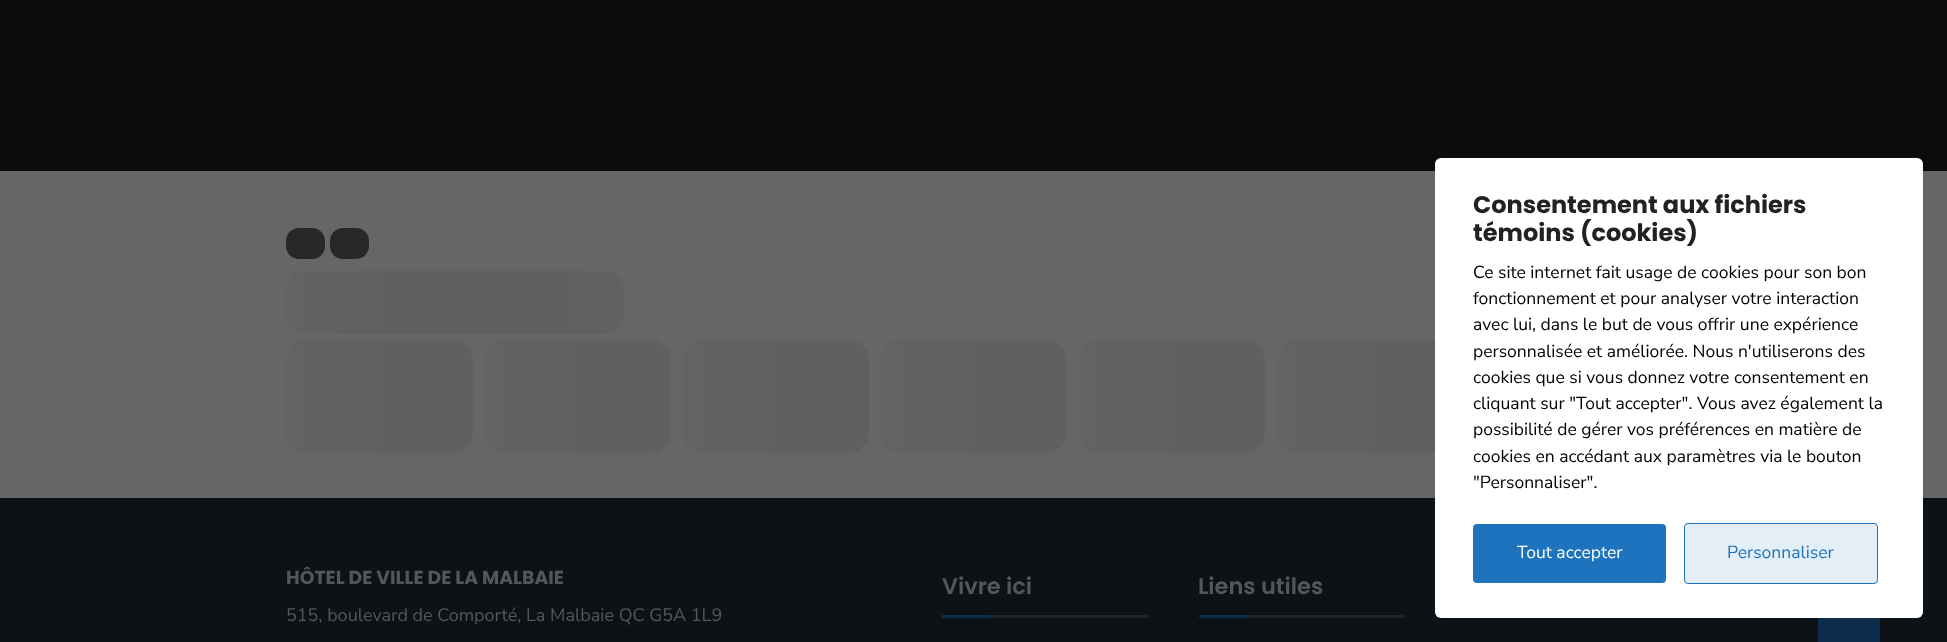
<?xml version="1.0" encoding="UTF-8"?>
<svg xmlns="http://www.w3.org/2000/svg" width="1947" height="642">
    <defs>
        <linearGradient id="g1" gradientUnits="userSpaceOnUse" x1="1278" y1="396" x2="1653" y2="396"><stop offset="0" stop-color="#636363"/><stop offset="0.25" stop-color="#606060"/><stop offset="0.75" stop-color="#606060"/><stop offset="1" stop-color="#636363"/></linearGradient>
        <linearGradient id="g2" gradientUnits="userSpaceOnUse" x1="286" y1="303" x2="661" y2="303"><stop offset="0" stop-color="#636363"/><stop offset="0.25" stop-color="#606060"/><stop offset="0.75" stop-color="#606060"/><stop offset="1" stop-color="#636363"/></linearGradient>
        <linearGradient id="g3" gradientUnits="userSpaceOnUse" x1="286" y1="396" x2="661" y2="396"><stop offset="0" stop-color="#636363"/><stop offset="0.25" stop-color="#606060"/><stop offset="0.75" stop-color="#606060"/><stop offset="1" stop-color="#636363"/></linearGradient>
        <linearGradient id="g4" gradientUnits="userSpaceOnUse" x1="485" y1="396" x2="860" y2="396"><stop offset="0" stop-color="#636363"/><stop offset="0.25" stop-color="#606060"/><stop offset="0.75" stop-color="#606060"/><stop offset="1" stop-color="#636363"/></linearGradient>
        <linearGradient id="g5" gradientUnits="userSpaceOnUse" x1="683" y1="396" x2="1058" y2="396"><stop offset="0" stop-color="#636363"/><stop offset="0.25" stop-color="#606060"/><stop offset="0.75" stop-color="#606060"/><stop offset="1" stop-color="#636363"/></linearGradient>
        <linearGradient id="g6" gradientUnits="userSpaceOnUse" x1="881" y1="396" x2="1256" y2="396"><stop offset="0" stop-color="#636363"/><stop offset="0.25" stop-color="#606060"/><stop offset="0.75" stop-color="#606060"/><stop offset="1" stop-color="#636363"/></linearGradient>
        <linearGradient id="g7" gradientUnits="userSpaceOnUse" x1="1079" y1="396" x2="1454" y2="396"><stop offset="0" stop-color="#636363"/><stop offset="0.25" stop-color="#606060"/><stop offset="0.75" stop-color="#606060"/><stop offset="1" stop-color="#636363"/></linearGradient>
    </defs>
    <rect width="100%" height="100%" fill="#666666"/>
    <rect x="0" y="0" width="1947" height="171" fill="#0C0C0C"/>
    <rect x="1278" y="340" width="185" height="113" rx="19" fill="url(#g1)"/>
    <rect x="0" y="498" width="1947" height="144" fill="#0D1217"/>
    <rect x="1435" y="158" width="488" height="460" rx="6" fill="#FFFFFF"/>
    <text font-family="Poppins" font-size="24" font-weight="700" fill="#222222">
        <tspan x="1473" y="213">Consentement aux fichiers</tspan>
        <tspan x="1473" y="241">témoins (cookies)</tspan>
    </text>
    <text font-family="Nunito Sans" font-size="17.5" fill="#000000">
        <tspan x="1473" y="278">Ce site internet fait usage de cookies pour son bon</tspan>
        <tspan x="1473" y="304">fonctionnement et pour analyser votre interaction</tspan>
        <tspan x="1473" y="330">avec lui, dans le but de vous offrir une expérience</tspan>
        <tspan x="1473" y="357">personnalisée et améliorée. Nous n'utiliserons des</tspan>
        <tspan x="1473" y="383">cookies que si vous donnez votre consentement en</tspan>
        <tspan x="1473" y="409">cliquant sur "Tout accepter". Vous avez également la</tspan>
        <tspan x="1473" y="435">possibilité de gérer vos préférences en matière de</tspan>
        <tspan x="1473" y="462">cookies en accédant aux paramètres via le bouton</tspan>
        <tspan x="1473" y="488">"Personnaliser".</tspan>
    </text>
    <rect x="1473" y="524" width="193" height="59" rx="4" fill="#1E73BE"/>
    <text x="1517" y="558" font-family="Nunito Sans" font-size="17.5" fill="#FFFFFF">Tout accepter</text>
    <rect x="1684.5" y="523.5" width="193" height="60" rx="3.5" fill="#E3EEF7" stroke="#1E73BE"/>
    <text x="1727" y="558" font-family="Nunito Sans" font-size="17.5" fill="#1E73BE">Personnaliser</text>
    <rect x="286" y="228" width="39" height="31" rx="13" fill="#282828"/>
    <rect x="330" y="228" width="39" height="31" rx="13" fill="#282828"/>
    <rect x="286" y="271" width="338" height="63" rx="19" fill="url(#g2)"/>
    <rect x="286" y="340" width="187" height="113" rx="19" fill="url(#g3)"/>
    <rect x="485" y="340" width="185" height="113" rx="19" fill="url(#g4)"/>
    <rect x="683" y="340" width="186" height="113" rx="19" fill="url(#g5)"/>
    <rect x="881" y="340" width="185" height="113" rx="19" fill="url(#g6)"/>
    <rect x="1079" y="340" width="186" height="113" rx="19" fill="url(#g7)"/>
    <text x="286" y="584" font-family="Poppins" font-size="18.75" font-weight="700" fill="#525858">HÔTEL DE VILLE DE LA MALBAIE</text>
    <text x="286" y="621" font-family="Nunito Sans" font-size="18" fill="#525858">515, boulevard de Comporté, La Malbaie QC G5A 1L9</text>
    <text x="942" y="594" font-family="Poppins" font-size="22.5" font-weight="600" fill="#525858">Vivre ici</text>
    <rect x="989" y="615" width="160" height="3" rx="1.5" fill="#222528"/>
    <rect x="941" y="615" width="50" height="3" rx="1.5" fill="#0C2E4C"/>
    <text x="1198" y="594" font-family="Poppins" font-size="22.5" font-weight="600" fill="#525858">Liens utiles</text>
    <rect x="1246" y="615" width="159" height="3" rx="1.5" fill="#222528"/>
    <rect x="1199" y="615" width="50" height="3" rx="1.5" fill="#0C2E4C"/>
    <rect x="1818" y="618" width="62" height="24" fill="#0C2E4C"/>
</svg>
